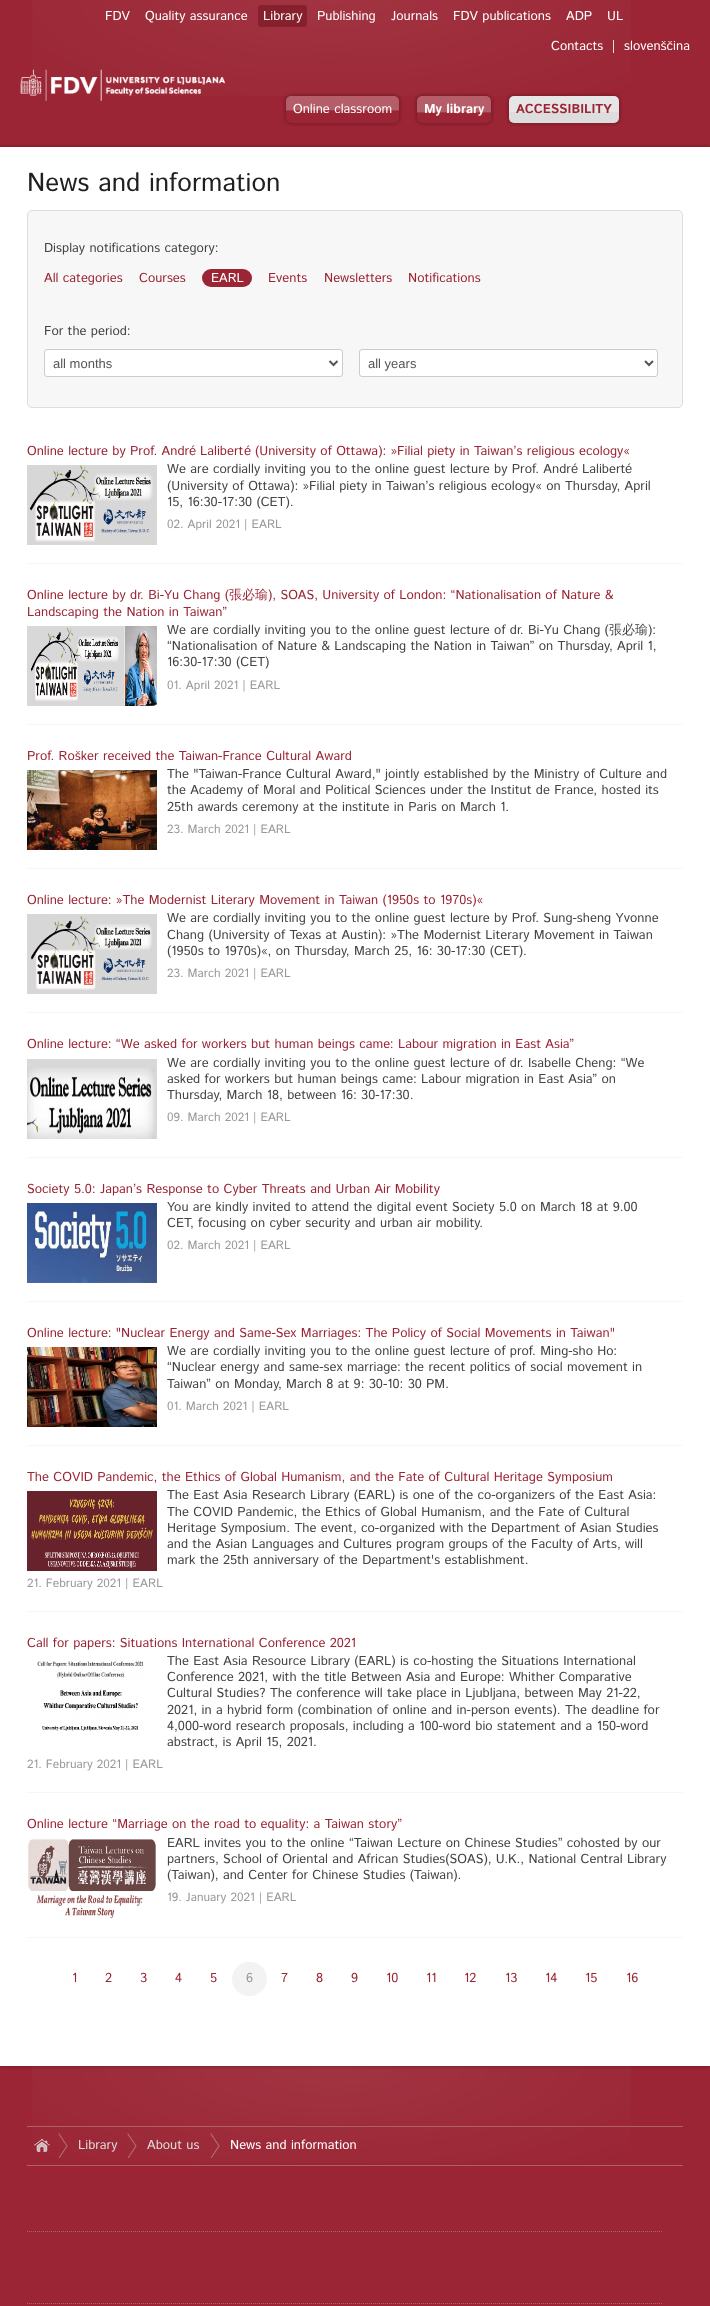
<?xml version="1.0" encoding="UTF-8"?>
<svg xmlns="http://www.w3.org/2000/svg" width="710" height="2306">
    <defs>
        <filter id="blur1" x="-50%" y="-200%" width="200%" height="500%"><feGaussianBlur stdDeviation="1.5"/></filter>
        <filter id="blur2" x="-50%" y="-200%" width="200%" height="500%"><feGaussianBlur stdDeviation="1"/></filter>
    </defs>
    <rect width="100%" height="100%" fill="#9B2534"/>
    <image x="32" y="0" width="599" height="96" href="img_01.png"/>
    <text x="105" y="20" font-family="Istok Web" font-size="13" fill="#FFFFFF">FDV</text>
    <text x="145" y="20" font-family="Istok Web" font-size="13" fill="#FFFFFF">Quality assurance</text>
    <rect x="258" y="5" width="49" height="22" rx="3" fill="#86202D"/>
    <text x="263" y="20" font-family="Istok Web" font-size="13" fill="#FFFFFF">Library</text>
    <text x="317" y="20" font-family="Istok Web" font-size="13" fill="#FFFFFF">Publishing</text>
    <text x="391" y="20" font-family="Istok Web" font-size="13" fill="#FFFFFF">Journals</text>
    <text x="453" y="20" font-family="Istok Web" font-size="13" fill="#FFFFFF">FDV publications</text>
    <text x="566" y="20" font-family="Istok Web" font-size="13" fill="#FFFFFF">ADP</text>
    <text x="607" y="20" font-family="Istok Web" font-size="13" fill="#FFFFFF">UL</text>
    <rect x="613" y="40" width="1" height="13" fill="#DDDDDD"/>
    <text x="551" y="50" font-family="Istok Web" font-size="13" fill="#FFFFFF">Contacts</text>
    <text x="624" y="50" font-family="Istok Web" font-size="13" fill="#FFFFFF">slovenščina</text>
    <image x="20" y="69" width="205" height="33" href="img_02.png"/>
    <rect x="285" y="95" width="115" height="29" rx="6" fill="#721B26" filter="url(#blur1)"/>
    <rect x="286" y="96" width="113" height="27" rx="5" fill="#9B2534"/>
    <image x="286" y="96" width="113" height="15" href="img_03.png"/>
    <text x="293" y="113" font-family="Istok Web" font-size="13" fill="#FFFFFF">Online classroom</text>
    <rect x="416" y="95" width="76" height="29" rx="6" fill="#721B26" filter="url(#blur1)"/>
    <rect x="417" y="96" width="74" height="27" rx="5" fill="#9B2534"/>
    <image x="417" y="96" width="74" height="17" href="img_04.png"/>
    <text x="424" y="113" font-family="Istok Web" font-size="13" font-weight="700" fill="#FFFFFF">My library</text>
    <rect x="508" y="95" width="112" height="29" rx="6" fill="#721B26" filter="url(#blur1)"/>
    <rect x="509" y="96" width="110" height="27" rx="5" fill="#DDDDDD"/>
    <image x="509" y="96" width="110" height="16" href="img_05.png"/>
    <text x="516" y="113" font-family="Istok Web" font-size="13" font-weight="700" fill="#9B2534">ACCESSIBILITY</text>
    <image x="32" y="2066" width="599" height="97" href="img_16.png"/>
    <rect x="0" y="145" width="710" height="1919" fill="#000000" fill-opacity="0.15" filter="url(#blur2)"/>
    <rect x="0" y="149" width="710" height="1919" fill="#000000" fill-opacity="0.15" filter="url(#blur2)"/>
    <rect x="0" y="147" width="710" height="1919" fill="#FFFFFF"/>
    <text x="27" y="191" font-family="Istok Web" font-size="26" fill="#202020">News and information</text>
    <rect x="27.5" y="210.5" width="655" height="197" rx="4.5" fill="#F7F7F7" stroke="#DDDDDD"/>
    <text x="44" y="252" font-family="Istok Web" font-size="13" fill="#444444">Display notifications category:</text>
    <text x="44" y="282" font-family="Istok Web" font-size="13" fill="#9B2534">All categories</text>
    <text x="139" y="282" font-family="Istok Web" font-size="13" fill="#9B2534">Courses</text>
    <rect x="202" y="269" width="50" height="18" rx="9" fill="#9B2534"/>
    <text x="211" y="282" font-family="Istok Web" font-size="13" fill="#FFFFFF">EARL</text>
    <text x="268" y="282" font-family="Istok Web" font-size="13" fill="#9B2534">Events</text>
    <text x="324" y="282" font-family="Istok Web" font-size="13" fill="#9B2534">Newsletters</text>
    <text x="408" y="282" font-family="Istok Web" font-size="13" fill="#9B2534">Notifications</text>
    <text x="44" y="335" font-family="Istok Web" font-size="13" fill="#444444">For the period:</text>
    <rect x="44.5" y="349.5" width="298" height="27" rx="2.5" fill="#FFFFFF" stroke="#CCCCCC"/>
    <path d="M 329.5 361 L 333.5 365 L 337.5 361" fill="none" stroke="#555555" stroke-width="2"/>
    <text x="53" y="368" font-family="Liberation Sans" font-size="13" fill="#555555">all months</text>
    <rect x="359.5" y="349.5" width="298" height="27" rx="2.5" fill="#FFFFFF" stroke="#CCCCCC"/>
    <path d="M 645 361 L 649 365 L 653 361" fill="none" stroke="#555555" stroke-width="2"/>
    <text x="368" y="368" font-family="Liberation Sans" font-size="13" fill="#555555">all years</text>
    <rect x="27" y="563" width="656" height="1" fill="#F7F7F7"/>
    <text x="27" y="455" font-family="Istok Web" font-size="13" fill="#9B2534">Online lecture by Prof. Andr</text>
    <text x="189" y="455" font-family="Liberation Sans" font-size="13" fill="#9B2534">é</text>
    <text x="200" y="455" font-family="Istok Web" font-size="13" fill="#9B2534">Lalibert</text>
    <text x="244" y="455" font-family="Liberation Sans" font-size="13" fill="#9B2534">é</text>
    <text x="255" y="455" font-family="Istok Web" font-size="13" fill="#9B2534">(University of Ottawa): »Filial piety in Taiwan’s religious ecology«</text>
    <image x="27" y="465" width="130" height="80" href="img_06.png"/>
    <text x="167" y="473" font-family="Istok Web" font-size="13" fill="#444444">We are cordially inviting you to the online guest lecture by Prof. Andr</text>
    <text x="571" y="473" font-family="Liberation Sans" font-size="13" fill="#444444">é</text>
    <text x="582" y="473" font-family="Istok Web" font-size="13" fill="#444444">Lalibert</text>
    <text x="625" y="473" font-family="Liberation Sans" font-size="13" fill="#444444">é</text>
    <text font-family="Istok Web" font-size="13" fill="#444444">
        <tspan x="167" y="490">(University of Ottawa): »Filial piety in Taiwan’s religious ecology« on Thursday, April</tspan>
        <tspan x="167" y="506">15, 16:30-17:30 (CET).</tspan>
    </text>
    <text x="167" y="528" font-family="Istok Web" font-size="12" fill="#999999">02. April 2021 | EARL</text>
    <rect x="27" y="724" width="656" height="1" fill="#F7F7F7"/>
    <text x="27" y="599" font-family="Istok Web" font-size="13" fill="#9B2534">Online lecture by dr. Bi-Yu Chang (</text>
    <text x="229" y="599" font-family="WenQuanYi Zen Hei" font-size="13" font-weight="500" fill="#9B2534">張必瑜</text>
    <text x="268" y="599" font-family="Istok Web" font-size="13" fill="#9B2534">), SOAS, University of London: “Nationalisation of Nature &amp;</text>
    <text x="27" y="616" font-family="Istok Web" font-size="13" fill="#9B2534">Landscaping the Nation in Taiwan”</text>
    <image x="27" y="626" width="130" height="80" href="img_07.png"/>
    <text x="167" y="634" font-family="Istok Web" font-size="13" fill="#444444">We are cordially inviting you to the online guest lecture of dr. Bi-Yu Chang (</text>
    <text x="609" y="634" font-family="WenQuanYi Zen Hei" font-size="13" font-weight="500" fill="#444444">張必瑜</text>
    <text x="648" y="634" font-family="Istok Web" font-size="13" fill="#444444">):</text>
    <text font-family="Istok Web" font-size="13" fill="#444444">
        <tspan x="167" y="650">“Nationalisation of Nature &amp; Landscaping the Nation in Taiwan” on Thursday, April 1,</tspan>
        <tspan x="167" y="666">16:30-17:30 (CET)</tspan>
    </text>
    <text x="167" y="689" font-family="Istok Web" font-size="12" fill="#999999">01. April 2021 | EARL</text>
    <rect x="27" y="868" width="656" height="1" fill="#F7F7F7"/>
    <text x="27" y="760" font-family="Istok Web" font-size="13" fill="#9B2534">Prof. Rošker received the Taiwan-France Cultural Award</text>
    <image x="27" y="770" width="130" height="80" href="img_08.png"/>
    <text font-family="Istok Web" font-size="13" fill="#444444">
        <tspan x="167" y="778">The "Taiwan-France Cultural Award," jointly established by the Ministry of Culture and</tspan>
        <tspan x="167" y="794">the Academy of Moral and Political Sciences under the Institut de France, hosted its</tspan>
        <tspan x="167" y="811">25th awards ceremony at the institute in Paris on March 1.</tspan>
    </text>
    <text x="167" y="833" font-family="Istok Web" font-size="12" fill="#999999">23. March 2021 | EARL</text>
    <rect x="27" y="1012" width="656" height="1" fill="#F7F7F7"/>
    <text x="27" y="904" font-family="Istok Web" font-size="13" fill="#9B2534">Online lecture: »The Modernist Literary Movement in Taiwan (1950s to 1970s)«</text>
    <image x="27" y="914" width="130" height="80" href="img_09.png"/>
    <text font-family="Istok Web" font-size="13" fill="#444444">
        <tspan x="167" y="922">We are cordially inviting you to the online guest lecture by Prof. Sung-sheng Yvonne</tspan>
        <tspan x="167" y="939">Chang (University of Texas at Austin): »The Modernist Literary Movement in Taiwan</tspan>
        <tspan x="167" y="955">(1950s to 1970s)«, on Thursday, March 25, 16: 30-17:30 (CET).</tspan>
    </text>
    <text x="167" y="977" font-family="Istok Web" font-size="12" fill="#999999">23. March 2021 | EARL</text>
    <rect x="27" y="1157" width="656" height="1" fill="#F7F7F7"/>
    <text x="27" y="1048" font-family="Istok Web" font-size="13" fill="#9B2534">Online lecture: “We asked for workers but human beings came: Labour migration in East Asia”</text>
    <image x="27" y="1059" width="130" height="80" href="img_10.png"/>
    <text font-family="Istok Web" font-size="13" fill="#444444">
        <tspan x="167" y="1067">We are cordially inviting you to the online guest lecture of dr. Isabelle Cheng: “We</tspan>
        <tspan x="167" y="1083">asked for workers but human beings came: Labour migration in East Asia” on</tspan>
        <tspan x="167" y="1099">Thursday, March 18, between 16: 30-17:30.</tspan>
    </text>
    <text x="167" y="1121" font-family="Istok Web" font-size="12" fill="#999999">09. March 2021 | EARL</text>
    <rect x="27" y="1301" width="656" height="1" fill="#F7F7F7"/>
    <text x="27" y="1193" font-family="Istok Web" font-size="13" fill="#9B2534">Society 5.0: Japan’s Response to Cyber Threats and Urban Air Mobility</text>
    <image x="27" y="1203" width="130" height="80" href="img_11.png"/>
    <text font-family="Istok Web" font-size="13" fill="#444444">
        <tspan x="167" y="1211">You are kindly invited to attend the digital event Society 5.0 on March 18 at 9.00</tspan>
        <tspan x="167" y="1227">CET, focusing on cyber security and urban air mobility.</tspan>
    </text>
    <text x="167" y="1249" font-family="Istok Web" font-size="12" fill="#999999">02. March 2021 | EARL</text>
    <rect x="27" y="1445" width="656" height="1" fill="#F7F7F7"/>
    <text x="27" y="1337" font-family="Istok Web" font-size="13" fill="#9B2534">Online lecture: "Nuclear Energy and Same-Sex Marriages: The Policy of Social Movements in Taiwan"</text>
    <image x="27" y="1347" width="130" height="80" href="img_12.png"/>
    <text font-family="Istok Web" font-size="13" fill="#444444">
        <tspan x="167" y="1355">We are cordially inviting you to the online guest lecture of prof. Ming-sho Ho:</tspan>
        <tspan x="167" y="1371">“Nuclear energy and same-sex marriage: the recent politics of social movement in</tspan>
        <tspan x="167" y="1388">Taiwan” on Monday, March 8 at 9: 30-10: 30 PM.</tspan>
    </text>
    <text x="167" y="1410" font-family="Istok Web" font-size="12" fill="#999999">01. March 2021 | EARL</text>
    <rect x="27" y="1611" width="656" height="1" fill="#F7F7F7"/>
    <text x="27" y="1481" font-family="Istok Web" font-size="13" fill="#9B2534">The COVID Pandemic, the Ethics of Global Humanism, and the Fate of Cultural Heritage Symposium</text>
    <image x="27" y="1491" width="130" height="80" href="img_13.png"/>
    <text font-family="Istok Web" font-size="13" fill="#444444">
        <tspan x="167" y="1499">The East Asia Research Library (EARL) is one of the co-organizers of the East Asia:</tspan>
        <tspan x="167" y="1516">The COVID Pandemic, the Ethics of Global Humanism, and the Fate of Cultural</tspan>
        <tspan x="167" y="1532">Heritage Symposium. The event, co-organized with the Department of Asian Studies</tspan>
        <tspan x="167" y="1548">and the Asian Languages and Cultures program groups of the Faculty of Arts, will</tspan>
        <tspan x="167" y="1564">mark the 25th anniversary of the Department's establishment.</tspan>
    </text>
    <text x="27" y="1587" font-family="Istok Web" font-size="12" fill="#999999">21. February 2021 | EARL</text>
    <rect x="27" y="1792" width="656" height="1" fill="#F7F7F7"/>
    <text x="27" y="1647" font-family="Istok Web" font-size="13" fill="#9B2534">Call for papers: Situations International Conference 2021</text>
    <image x="37" y="1661" width="107" height="70" href="img_14.png"/>
    <text font-family="Istok Web" font-size="13" fill="#444444">
        <tspan x="167" y="1665">The East Asia Resource Library (EARL) is co-hosting the Situations International</tspan>
        <tspan x="167" y="1681">Conference 2021, with the title Between Asia and Europe: Whither Comparative</tspan>
        <tspan x="167" y="1697">Cultural Studies? The conference will take place in Ljubljana, between May 21-22,</tspan>
        <tspan x="167" y="1714">2021, in a hybrid form (combination of online and in-person events). The deadline for</tspan>
        <tspan x="167" y="1730">4,000-word research proposals, including a 100-word bio statement and a 150-word</tspan>
        <tspan x="167" y="1746">abstract, is April 15, 2021.</tspan>
    </text>
    <text x="27" y="1768" font-family="Istok Web" font-size="12" fill="#999999">21. February 2021 | EARL</text>
    <rect x="27" y="1937" width="656" height="1" fill="#F7F7F7"/>
    <text x="27" y="1828" font-family="Istok Web" font-size="13" fill="#9B2534">Online lecture “Marriage on the road to equality: a Taiwan story”</text>
    <image x="28" y="1839" width="128" height="80" href="img_15.png"/>
    <text font-family="Istok Web" font-size="13" fill="#444444">
        <tspan x="167" y="1847">EARL invites you to the online “Taiwan Lecture on Chinese Studies” cohosted by our</tspan>
        <tspan x="167" y="1863">partners, School of Oriental and African Studies(SOAS), U.K., National Central Library</tspan>
        <tspan x="167" y="1879">(Taiwan), and Center for Chinese Studies (Taiwan).</tspan>
    </text>
    <text x="167" y="1901" font-family="Istok Web" font-size="12" fill="#999999">19. January 2021 | EARL</text>
    <text x="72" y="1982" font-family="Istok Web" font-size="13" fill="#9B2534">1</text>
    <text x="105" y="1982" font-family="Istok Web" font-size="13" fill="#9B2534">2</text>
    <text x="140" y="1982" font-family="Istok Web" font-size="13" fill="#9B2534">3</text>
    <text x="175" y="1982" font-family="Istok Web" font-size="13" fill="#9B2534">4</text>
    <text x="210" y="1982" font-family="Istok Web" font-size="13" fill="#9B2534">5</text>
    <rect x="232" y="1962" width="35" height="34" rx="17" fill="#F3F3F3"/>
    <text x="246" y="1982" font-family="Istok Web" font-size="13" fill="#999999">6</text>
    <text x="281" y="1982" font-family="Istok Web" font-size="13" fill="#9B2534">7</text>
    <text x="316" y="1982" font-family="Istok Web" font-size="13" fill="#9B2534">8</text>
    <text x="351" y="1982" font-family="Istok Web" font-size="13" fill="#9B2534">9</text>
    <text x="386" y="1982" font-family="Istok Web" font-size="13" fill="#9B2534">10</text>
    <text x="426" y="1982" font-family="Istok Web" font-size="13" fill="#9B2534">11</text>
    <text x="464" y="1982" font-family="Istok Web" font-size="13" fill="#9B2534">12</text>
    <text x="505" y="1982" font-family="Istok Web" font-size="13" fill="#9B2534">13</text>
    <text x="545" y="1982" font-family="Istok Web" font-size="13" fill="#9B2534">14</text>
    <text x="585" y="1982" font-family="Istok Web" font-size="13" fill="#9B2534">15</text>
    <text x="626" y="1982" font-family="Istok Web" font-size="13" fill="#9B2534">16</text>
    <rect x="27" y="2126" width="656" height="1" fill="#AC606A"/>
    <rect x="27" y="2165" width="656" height="1" fill="#AC606A"/>
    <image x="34" y="2139" width="16" height="13" href="img_17.png"/>
    <image x="58" y="2133" width="10" height="25" href="img_18.png"/>
    <text x="78" y="2149" font-family="Istok Web" font-size="13" fill="#DDDDDD">Library</text>
    <image x="127" y="2133" width="10" height="25" href="img_19.png"/>
    <text x="147" y="2149" font-family="Istok Web" font-size="13" fill="#DDDDDD">About us</text>
    <image x="210" y="2133" width="10" height="25" href="img_20.png"/>
    <text x="230" y="2149" font-family="Istok Web" font-size="13" fill="#FFFFFF">News and information</text>
    <path d="M 27 2231.5 H 663" fill="none" stroke="#AC606A" stroke-dasharray="1 1"/>
    <path d="M 27 2303.5 H 663" fill="none" stroke="#AC606A" stroke-dasharray="1 1"/>
</svg>
